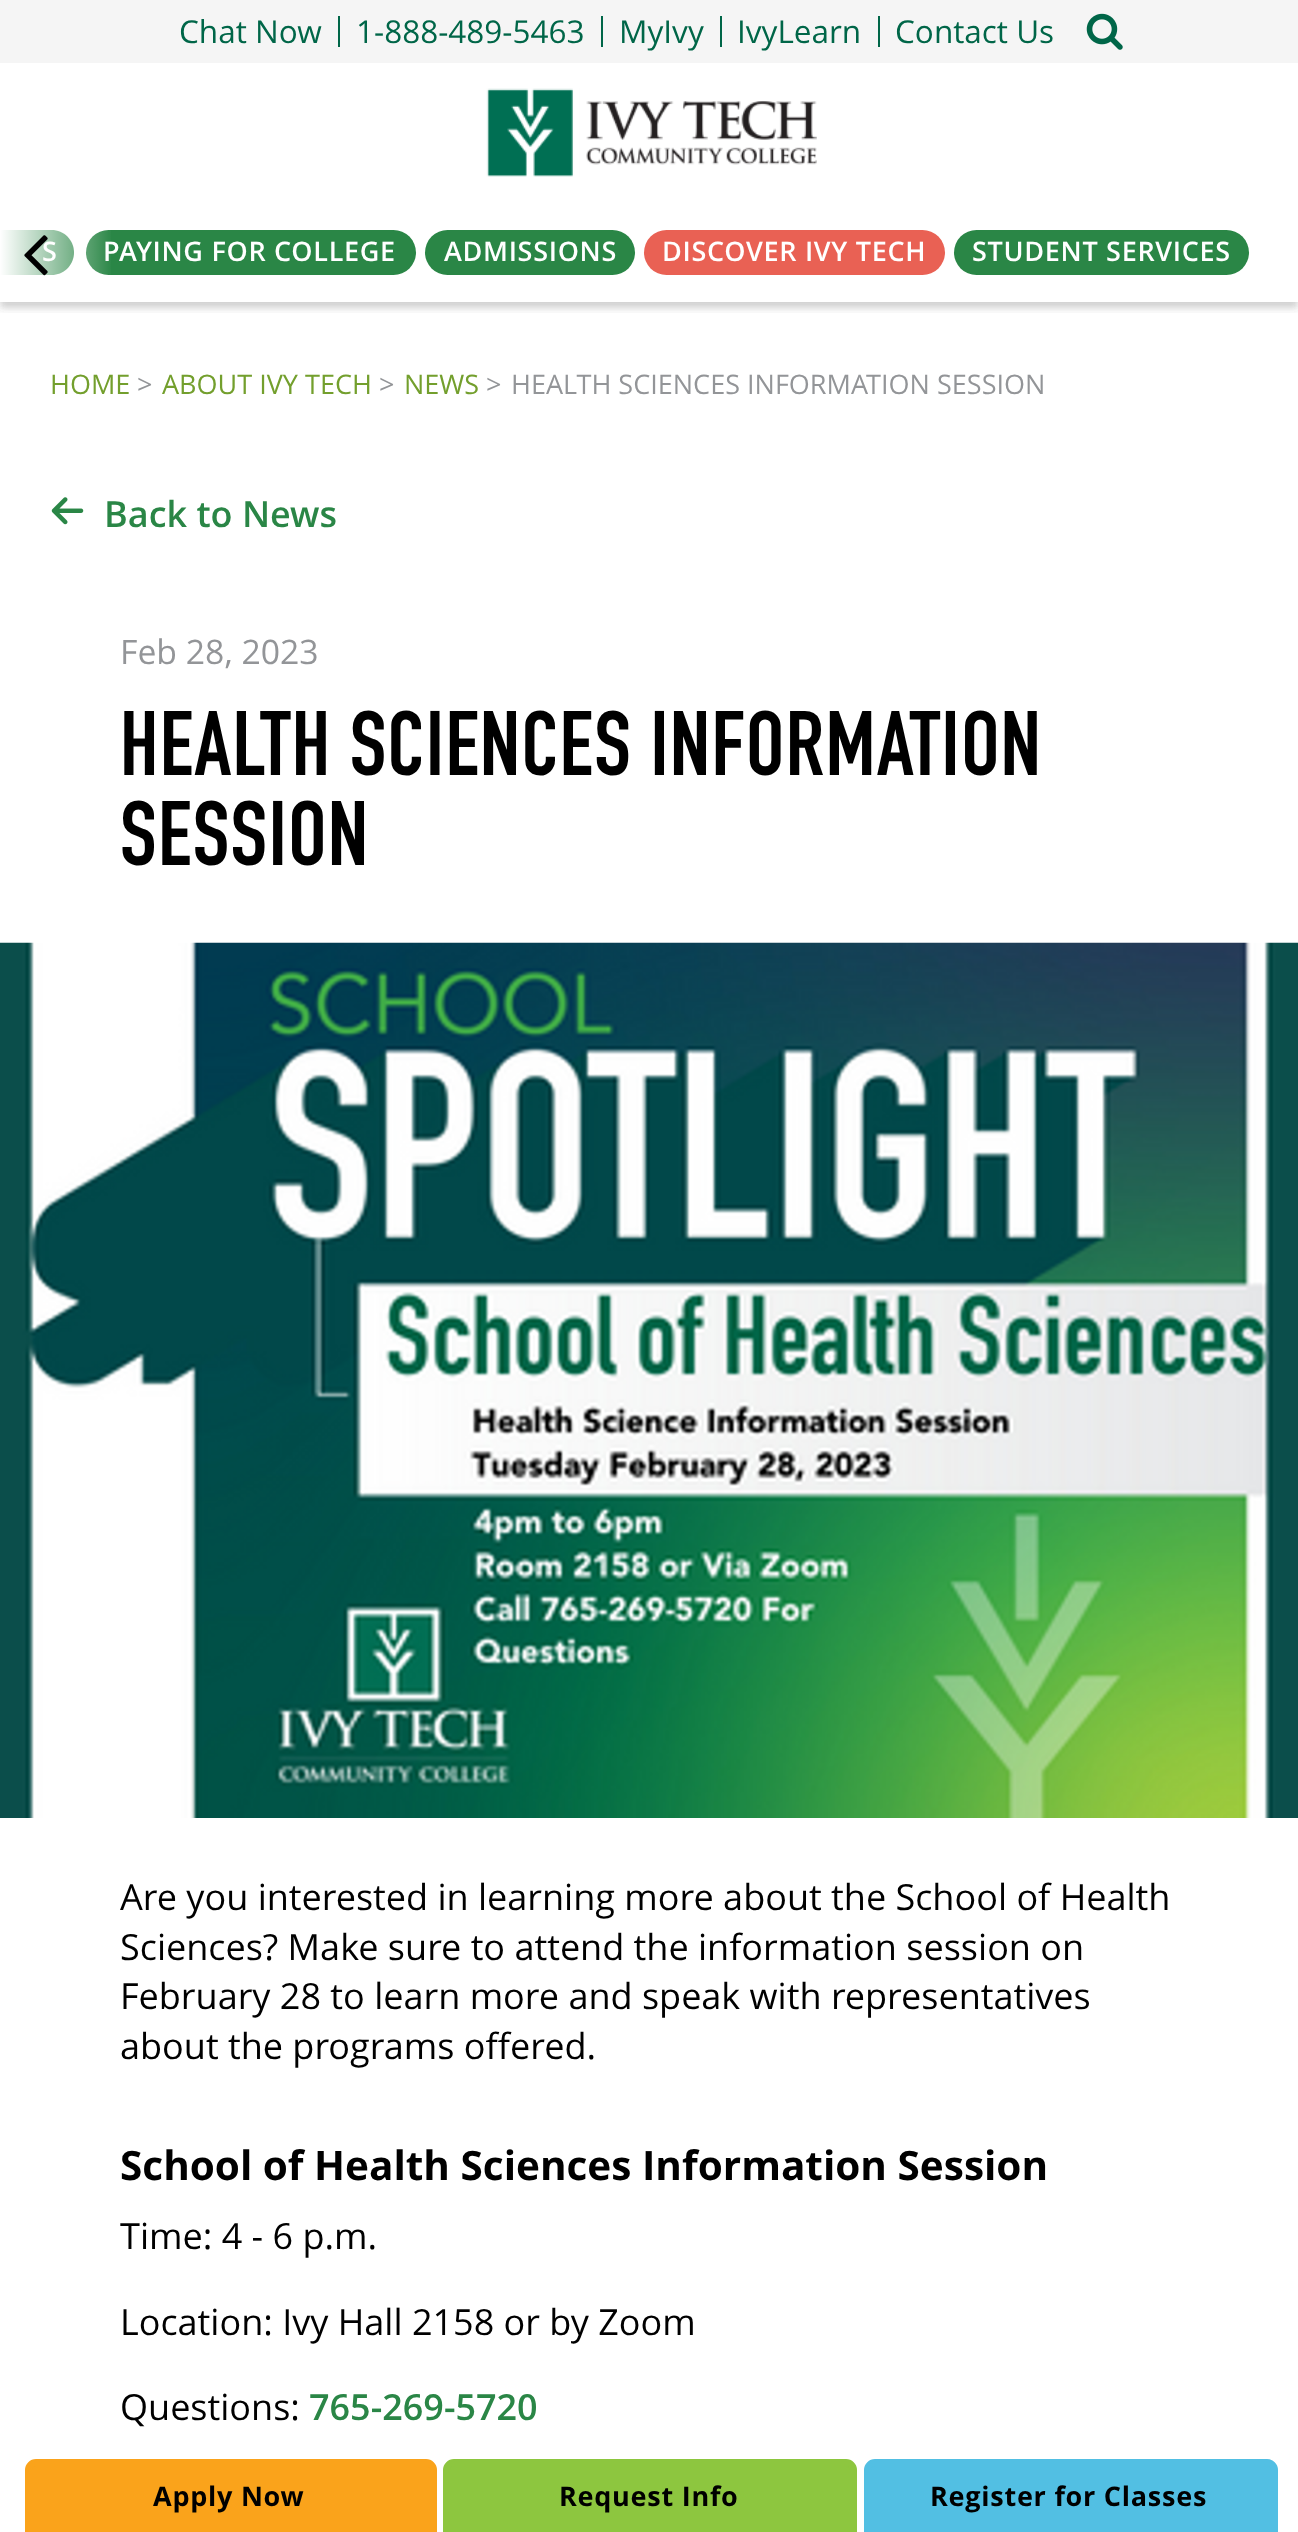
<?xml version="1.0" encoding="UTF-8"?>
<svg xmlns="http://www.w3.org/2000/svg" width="1298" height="2532">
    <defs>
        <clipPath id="clip1"><rect x="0" y="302" width="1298" height="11"/></clipPath>
        <filter id="blur1" x="-50%" y="-200%" width="200%" height="500%"><feGaussianBlur stdDeviation="3.5"/></filter>
        <linearGradient id="g1" gradientUnits="userSpaceOnUse" x1="0" y1="252" x2="113" y2="252"><stop offset="0" stop-color="#FFFFFF"/><stop offset="1" stop-color="#FFFFFF" stop-opacity="0"/></linearGradient>
    </defs>
    <rect width="100%" height="100%" fill="#FFFFFF"/>
    <rect x="0" y="0" width="1298" height="63" fill="#F5F5F5"/>
    <text x="179" y="43" font-family="Open Sans" font-size="31.5" fill="#006648">Chat Now</text>
    <rect x="338" y="16" width="2" height="31" fill="#006648"/>
    <text x="356" y="43" font-family="Open Sans" font-size="31.5" fill="#006648">1-888-489-5463</text>
    <rect x="601" y="16" width="2" height="31" fill="#006648"/>
    <text x="619" y="43" font-family="Open Sans" font-size="31.5" fill="#006648">MyIvy</text>
    <rect x="720" y="16" width="2" height="31" fill="#006648"/>
    <text x="737" y="43" font-family="Open Sans" font-size="31.5" fill="#006648">IvyLearn</text>
    <rect x="878" y="16" width="2" height="31" fill="#006648"/>
    <text x="895" y="43" font-family="Open Sans" font-size="31.5" fill="#006648">Contact Us</text>
    <image x="1086" y="13" width="37" height="37" href="img_01.png"/>
    <g clip-path="url(#clip1)">
        <rect x="0" y="70" width="1298" height="238" fill="#464646" fill-opacity="0.25" filter="url(#blur1)"/>
    </g>
    <rect x="1" y="301" width="1297" height="1" fill="#FFFFFF"/>
    <path d="M 0 230 H 51.5 C 64 230 74 240 74 252.5 C 74 265 64 275 51.5 275 H 0 Z" fill="#2A8646"/>
    <text x="42" y="261" font-family="Open Sans" font-size="27" font-weight="600" letter-spacing="0.7" fill="#FFFFFF">S</text>
    <rect x="86" y="230" width="330" height="45" rx="22.5" fill="#2A8646"/>
    <text x="103" y="261" font-family="Open Sans" font-size="27" font-weight="600" letter-spacing="0.7" fill="#FFFFFF">PAYING FOR COLLEGE</text>
    <rect x="0" y="230" width="111" height="72" fill="url(#g1)"/>
    <image x="24" y="235" width="24" height="41" href="img_02.png"/>
    <rect x="425" y="230" width="210" height="45" rx="22.5" fill="#2A8646"/>
    <text x="444" y="261" font-family="Open Sans" font-size="27" font-weight="600" letter-spacing="0.7" fill="#FFFFFF">ADMISSIONS</text>
    <rect x="644" y="230" width="301" height="45" rx="22.5" fill="#E96154"/>
    <text x="662" y="261" font-family="Open Sans" font-size="27" font-weight="600" letter-spacing="0.7" fill="#FFFFFF">DISCOVER IVY TECH</text>
    <rect x="954" y="230" width="295" height="45" rx="22.5" fill="#2A8646"/>
    <text x="972" y="261" font-family="Open Sans" font-size="27" font-weight="600" letter-spacing="0.7" fill="#FFFFFF">STUDENT SERVICES</text>
    <image x="486" y="88" width="331" height="89" href="img_03.png"/>
    <path d="M 36 2462.5 H 426 C 430 2462.5 433.5 2466 433.5 2470 V 2530.5 H 28.5 V 2470 C 28.5 2466 32 2462.5 36 2462.5 Z" fill="#FAA31B" stroke="#FAA31B" stroke-width="7"/>
    <text x="153" y="2506" font-family="Open Sans" font-size="27" font-weight="700" letter-spacing="0.75" fill="#000000">Apply Now</text>
    <path d="M 454 2462.5 H 846 C 850 2462.5 853.5 2466 853.5 2470 V 2530.5 H 446.5 V 2470 C 446.5 2466 450 2462.5 454 2462.5 Z" fill="#8DC63F" stroke="#8DC63F" stroke-width="7"/>
    <text x="559" y="2506" font-family="Open Sans" font-size="27" font-weight="700" letter-spacing="0.75" fill="#000000">Request Info</text>
    <path d="M 875 2462.5 H 1267 C 1271 2462.5 1274.5 2466 1274.5 2470 V 2530.5 H 867.5 V 2470 C 867.5 2466 871 2462.5 875 2462.5 Z" fill="#52BFE3" stroke="#52BFE3" stroke-width="7"/>
    <text x="930" y="2506" font-family="Open Sans" font-size="27" font-weight="700" letter-spacing="0.75" fill="#000000">Register for Classes</text>
    <text x="50" y="394" font-family="Open Sans" font-size="27" fill="#739F2D">HOME</text>
    <text x="137" y="394" font-family="Open Sans" font-size="27" fill="#939598">&gt;</text>
    <text x="162" y="394" font-family="Open Sans" font-size="27" fill="#739F2D">ABOUT IVY TECH</text>
    <text x="379" y="394" font-family="Open Sans" font-size="27" fill="#939598">&gt;</text>
    <text x="404" y="394" font-family="Open Sans" font-size="27" fill="#739F2D">NEWS</text>
    <text x="486" y="394" font-family="Open Sans" font-size="27" fill="#939598">&gt;</text>
    <text x="511" y="394" font-family="Open Sans" font-size="27" fill="#939598">HEALTH SCIENCES INFORMATION SESSION</text>
    <image x="51" y="497" width="33" height="28" href="img_04.png"/>
    <text x="104" y="527" font-family="Open Sans" font-size="36" font-weight="600" fill="#2A8646">Back to News</text>
    <text x="120" y="664" font-family="Open Sans" font-size="33.75" fill="#939598">Feb 28, 2023</text>
    <text font-family="'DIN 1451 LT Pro'" font-size="90" letter-spacing="1.4" fill="#000000">
        <tspan x="120" y="775">HEALTH SCIENCES INFORMATION</tspan>
        <tspan x="120" y="865">SESSION</tspan>
    </text>
    <image x="0" y="942" width="1298" height="876" href="img_05.png"/>
    <text font-family="Open Sans" font-size="36" fill="#000000">
        <tspan x="120" y="1910">Are you interested in learning more about the School of Health</tspan>
        <tspan x="120" y="1960">Sciences? Make sure to attend the information session on</tspan>
        <tspan x="120" y="2009">February 28 to learn more and speak with representatives</tspan>
        <tspan x="120" y="2059">about the programs offered.</tspan>
    </text>
    <text x="120" y="2180" font-family="Open Sans" font-size="40.5" font-weight="700" fill="#000000">School of Health Sciences Information Session</text>
    <text x="120" y="2249" font-family="Open Sans" font-size="36" fill="#000000">Time: 4 - 6 p.m.</text>
    <text x="120" y="2335" font-family="Open Sans" font-size="36" fill="#000000">Location: Ivy Hall 2158 or by Zoom</text>
    <text x="120" y="2420" font-family="Open Sans" font-size="36" fill="#000000">Questions:</text>
    <text x="309" y="2420" font-family="Open Sans" font-size="36" font-weight="600" fill="#2A8646">765-269-5720</text>
</svg>
